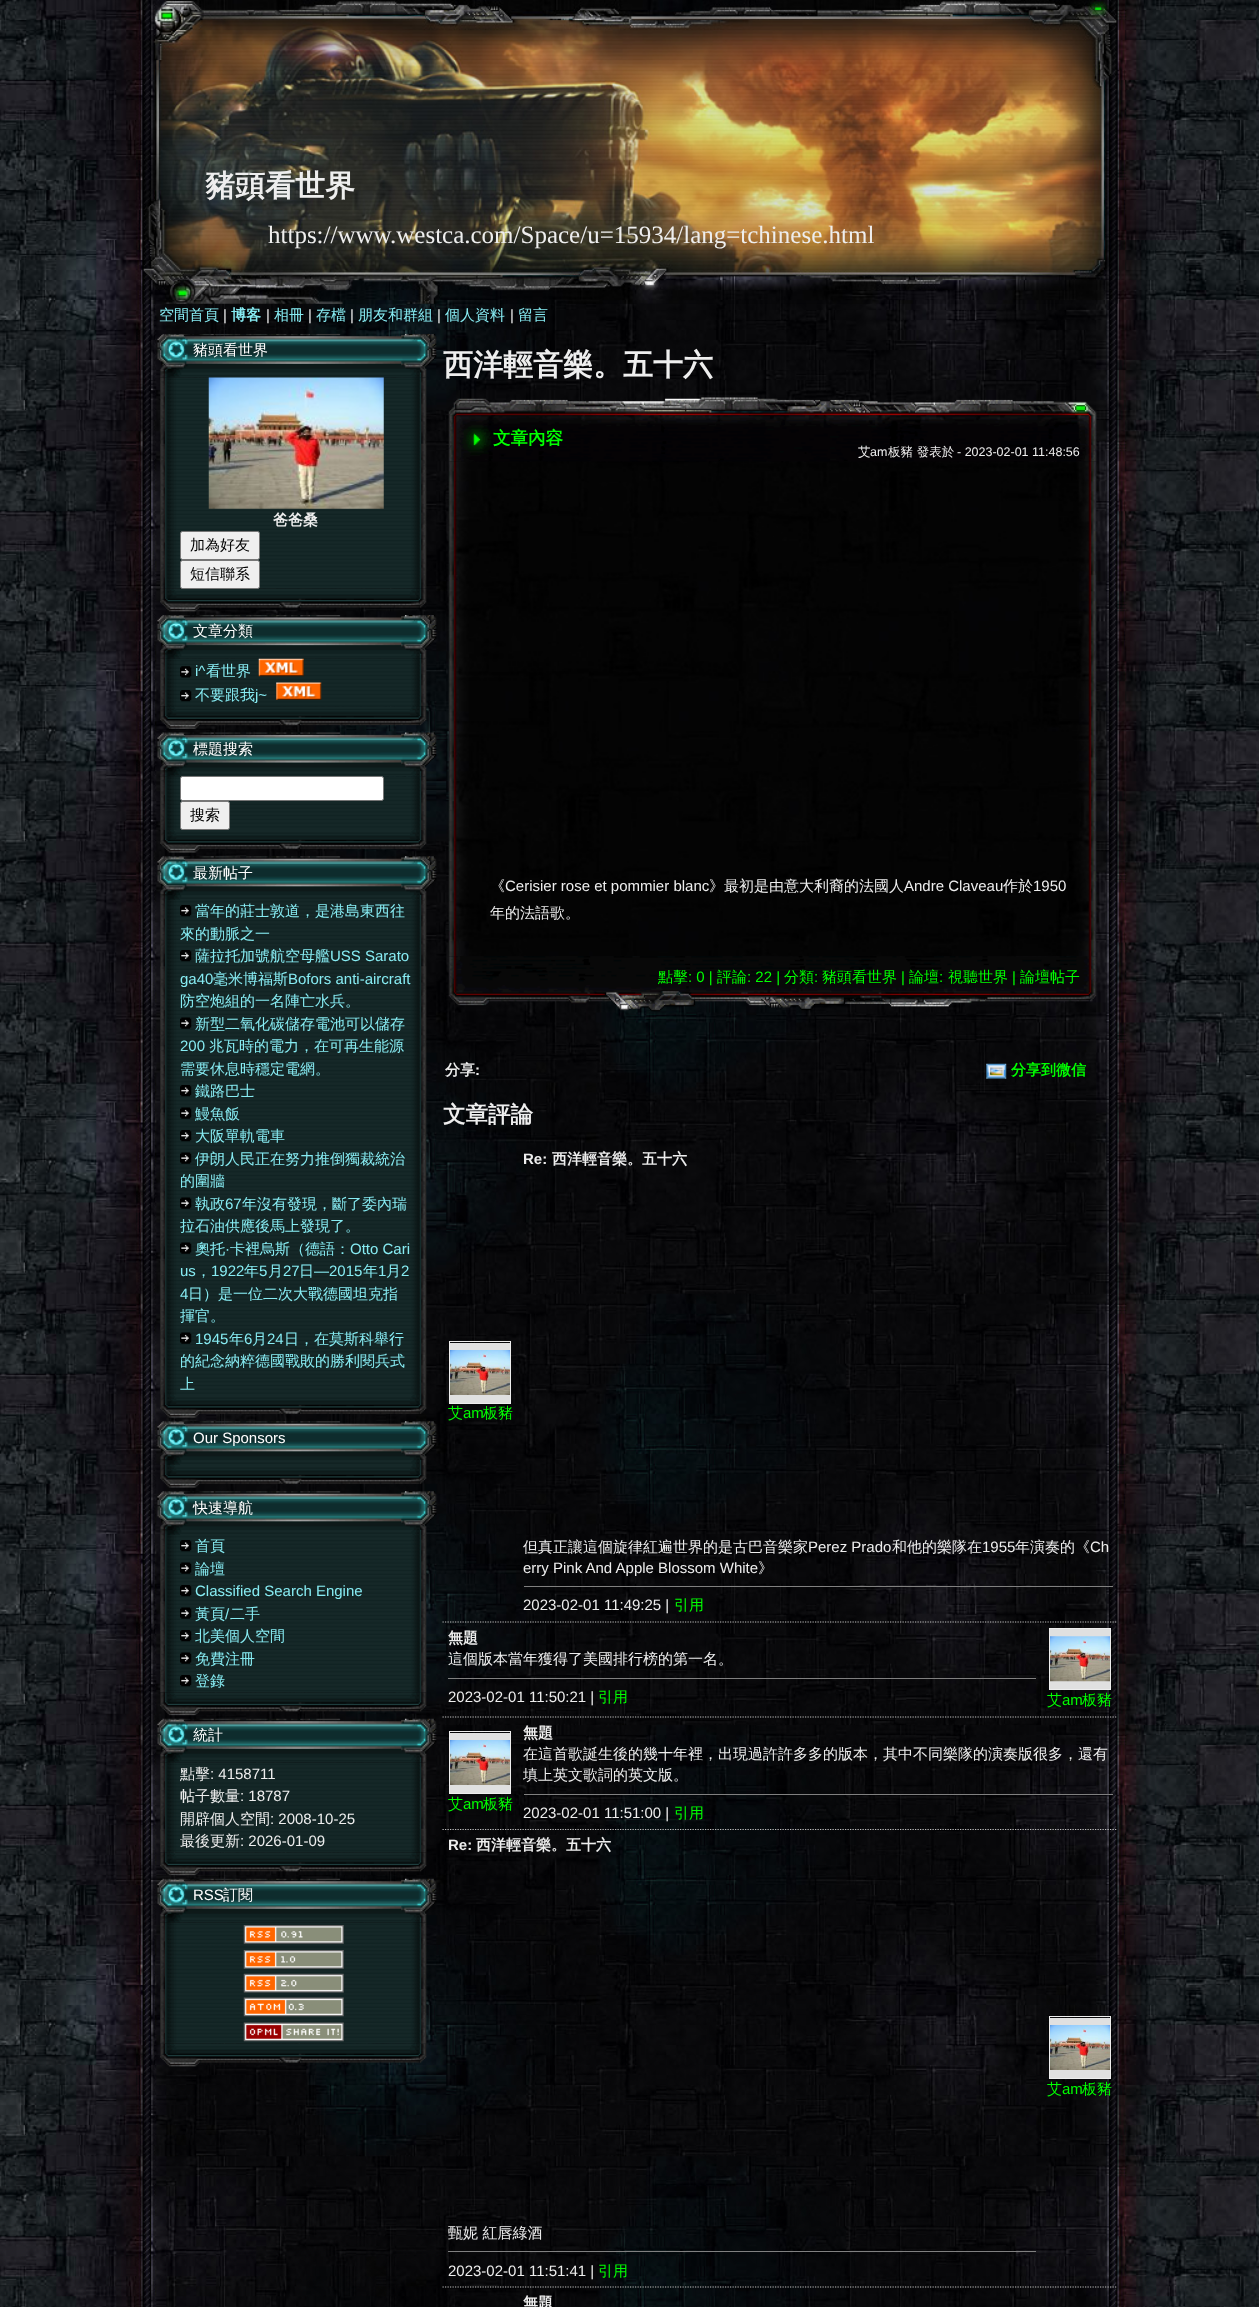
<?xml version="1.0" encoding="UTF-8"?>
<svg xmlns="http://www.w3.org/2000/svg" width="1259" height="2307">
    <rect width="100%" height="100%" fill="#FFFFFF"/>
    <image x="0" y="0" width="1259" height="2307" href="img_01.png"/>
    <image x="142" y="0" width="976" height="304" href="img_02.png"/>
    <text x="205" y="196" font-family="WenQuanYi Zen Hei" font-size="30" font-weight="700" fill="#EEEEEE">豬頭看世界</text>
    <text x="268" y="243" font-family="Liberation Serif" font-size="25" fill="#EEEEEE">https://www.westca.com/Space/u=15934/lang=tchinese.html</text>
    <text x="159" y="320" font-family="WenQuanYi Zen Hei" font-size="15" font-weight="500" fill="#87ECF3">空間首頁</text>
    <text x="223" y="320" font-family="Liberation Sans" font-size="15" fill="#EEEEEE">|</text>
    <text x="231" y="320" font-family="WenQuanYi Zen Hei" font-size="15" font-weight="700" fill="#87ECF3">博客</text>
    <text x="266" y="320" font-family="Liberation Sans" font-size="15" fill="#EEEEEE">|</text>
    <text x="274" y="320" font-family="WenQuanYi Zen Hei" font-size="15" font-weight="500" fill="#87ECF3">相冊</text>
    <text x="308" y="320" font-family="Liberation Sans" font-size="15" fill="#EEEEEE">|</text>
    <text x="316" y="320" font-family="WenQuanYi Zen Hei" font-size="15" font-weight="500" fill="#87ECF3">存檔</text>
    <text x="350" y="320" font-family="Liberation Sans" font-size="15" fill="#EEEEEE">|</text>
    <text x="358" y="320" font-family="WenQuanYi Zen Hei" font-size="15" font-weight="500" fill="#87ECF3">朋友和群組</text>
    <text x="437" y="320" font-family="Liberation Sans" font-size="15" fill="#EEEEEE">|</text>
    <text x="445" y="320" font-family="WenQuanYi Zen Hei" font-size="15" font-weight="500" fill="#87ECF3">個人資料</text>
    <text x="510" y="320" font-family="Liberation Sans" font-size="15" fill="#EEEEEE">|</text>
    <text x="518" y="320" font-family="WenQuanYi Zen Hei" font-size="15" font-weight="500" fill="#87ECF3">留言</text>
    <image x="157" y="333" width="280" height="45" href="img_03.png"/>
    <text x="193" y="355" font-family="WenQuanYi Zen Hei" font-size="15" font-weight="500" fill="#FFFFFF">豬頭看世界</text>
    <image x="160" y="377" width="267" height="212" href="img_04.png"/>
    <image x="208" y="377" width="176" height="132" href="img_05.png"/>
    <text x="273" y="525" font-family="WenQuanYi Zen Hei" font-size="15" font-weight="700" fill="#EEEEEE">爸爸桑</text>
    <rect x="180.5" y="531.5" width="79" height="28" rx="2" fill="#EFEFEF" stroke="#767676"/>
    <text x="190" y="550" font-family="WenQuanYi Zen Hei" font-size="15" font-weight="500" fill="#000000">加為好友</text>
    <rect x="180.5" y="560.5" width="79" height="28" rx="2" fill="#EFEFEF" stroke="#767676"/>
    <text x="190" y="579" font-family="WenQuanYi Zen Hei" font-size="15" font-weight="500" fill="#000000">短信聯系</text>
    <image x="160" y="589" width="267" height="23" href="img_06.png"/>
    <image x="157" y="615" width="280" height="44" href="img_07.png"/>
    <text x="193" y="636" font-family="WenQuanYi Zen Hei" font-size="15" font-weight="500" fill="#FFFFFF">文章分類</text>
    <image x="160" y="658" width="267" height="49" href="img_08.png"/>
    <image x="180" y="666" width="12" height="12" href="img_09.png"/>
    <text x="195" y="676" font-family="Liberation Sans" font-size="15" fill="#87ECF3">i^</text>
    <text x="206" y="676" font-family="WenQuanYi Zen Hei" font-size="15" font-weight="500" fill="#87ECF3">看世界</text>
    <image x="258" y="658" width="46" height="19" href="img_10.png"/>
    <image x="180" y="690" width="12" height="12" href="img_11.png"/>
    <text x="195" y="700" font-family="WenQuanYi Zen Hei" font-size="15" font-weight="500" fill="#87ECF3">不要跟我</text>
    <text x="255" y="700" font-family="Liberation Sans" font-size="15" fill="#87ECF3">j~</text>
    <image x="276" y="682" width="46" height="18" href="img_12.png"/>
    <image x="160" y="706" width="267" height="23" href="img_13.png"/>
    <image x="157" y="732" width="280" height="45" href="img_14.png"/>
    <text x="193" y="754" font-family="WenQuanYi Zen Hei" font-size="15" font-weight="500" fill="#FFFFFF">標題搜索</text>
    <image x="160" y="776" width="267" height="54" href="img_15.png"/>
    <rect x="180.5" y="776.5" width="203" height="24" rx="2" fill="#FFFFFF" stroke="#767676"/>
    <rect x="180.5" y="801.5" width="49" height="28" rx="2" fill="#EFEFEF" stroke="#767676"/>
    <text x="190" y="820" font-family="WenQuanYi Zen Hei" font-size="15" font-weight="500" fill="#000000">搜索</text>
    <image x="160" y="830" width="267" height="23" href="img_16.png"/>
    <image x="157" y="856" width="280" height="44" href="img_17.png"/>
    <text x="193" y="878" font-family="WenQuanYi Zen Hei" font-size="15" font-weight="500" fill="#FFFFFF">最新帖子</text>
    <image x="160" y="900" width="267" height="495" href="img_18.png"/>
    <image x="180" y="905" width="12" height="12" href="img_19.png"/>
    <text x="195" y="916" font-family="WenQuanYi Zen Hei" font-size="15" font-weight="500" fill="#87ECF3">當年的莊士敦道，是港島東西往</text>
    <text x="180" y="939" font-family="WenQuanYi Zen Hei" font-size="15" font-weight="500" fill="#87ECF3">來的動脈之一</text>
    <image x="180" y="950" width="12" height="12" href="img_20.png"/>
    <text x="195" y="961" font-family="WenQuanYi Zen Hei" font-size="15" font-weight="500" fill="#87ECF3">薩拉托加號航空母艦</text>
    <text x="330" y="961" font-family="Liberation Sans" font-size="15" fill="#87ECF3">USS Sarato</text>
    <text x="180" y="984" font-family="Liberation Sans" font-size="15" fill="#87ECF3">ga40</text>
    <text x="213" y="984" font-family="WenQuanYi Zen Hei" font-size="15" font-weight="500" fill="#87ECF3">毫米博福斯</text>
    <text x="288" y="984" font-family="Liberation Sans" font-size="15" fill="#87ECF3">Bofors anti-aircraft</text>
    <text x="180" y="1006" font-family="WenQuanYi Zen Hei" font-size="15" font-weight="500" fill="#87ECF3">防空炮組的一名陣亡水兵。</text>
    <image x="180" y="1017" width="12" height="12" href="img_21.png"/>
    <text x="195" y="1029" font-family="WenQuanYi Zen Hei" font-size="15" font-weight="500" fill="#87ECF3">新型二氧化碳儲存電池可以儲存</text>
    <text x="180" y="1051" font-family="Liberation Sans" font-size="15" fill="#87ECF3">200</text>
    <text x="209" y="1051" font-family="WenQuanYi Zen Hei" font-size="15" font-weight="500" fill="#87ECF3">兆瓦時的電力，在可再生能源</text>
    <text x="180" y="1074" font-family="WenQuanYi Zen Hei" font-size="15" font-weight="500" fill="#87ECF3">需要休息時穩定電網。</text>
    <image x="180" y="1085" width="12" height="12" href="img_22.png"/>
    <text x="195" y="1096" font-family="WenQuanYi Zen Hei" font-size="15" font-weight="500" fill="#87ECF3">鐵路巴士</text>
    <image x="180" y="1107" width="12" height="12" href="img_23.png"/>
    <text x="195" y="1119" font-family="WenQuanYi Zen Hei" font-size="15" font-weight="500" fill="#87ECF3">鰻魚飯</text>
    <image x="180" y="1130" width="12" height="12" href="img_22.png"/>
    <text x="195" y="1141" font-family="WenQuanYi Zen Hei" font-size="15" font-weight="500" fill="#87ECF3">大阪單軌電車</text>
    <image x="180" y="1152" width="12" height="12" href="img_21.png"/>
    <text x="195" y="1164" font-family="WenQuanYi Zen Hei" font-size="15" font-weight="500" fill="#87ECF3">伊朗人民正在努力推倒獨裁統治</text>
    <text x="180" y="1186" font-family="WenQuanYi Zen Hei" font-size="15" font-weight="500" fill="#87ECF3">的圍牆</text>
    <image x="180" y="1197" width="12" height="12" href="img_21.png"/>
    <text x="195" y="1209" font-family="WenQuanYi Zen Hei" font-size="15" font-weight="500" fill="#87ECF3">執政</text>
    <text x="225" y="1209" font-family="Liberation Sans" font-size="15" fill="#87ECF3">67</text>
    <text x="242" y="1209" font-family="WenQuanYi Zen Hei" font-size="15" font-weight="500" fill="#87ECF3">年沒有發現，斷了委內瑞</text>
    <text x="180" y="1231" font-family="WenQuanYi Zen Hei" font-size="15" font-weight="500" fill="#87ECF3">拉石油供應後馬上發現了。</text>
    <image x="180" y="1242" width="12" height="12" href="img_21.png"/>
    <text x="195" y="1254" font-family="WenQuanYi Zen Hei" font-size="15" font-weight="500" fill="#87ECF3">奧托</text>
    <text x="225" y="1254" font-family="Liberation Sans" font-size="15" fill="#87ECF3">·</text>
    <text x="230" y="1254" font-family="WenQuanYi Zen Hei" font-size="15" font-weight="500" fill="#87ECF3">卡裡烏斯（德語：</text>
    <text x="350" y="1254" font-family="Liberation Sans" font-size="15" fill="#87ECF3">Otto Cari</text>
    <text x="180" y="1276" font-family="Liberation Sans" font-size="15" fill="#87ECF3">us</text>
    <text x="196" y="1276" font-family="WenQuanYi Zen Hei" font-size="15" font-weight="500" fill="#87ECF3">，</text>
    <text x="211" y="1276" font-family="Liberation Sans" font-size="15" fill="#87ECF3">1922</text>
    <text x="244" y="1276" font-family="WenQuanYi Zen Hei" font-size="15" font-weight="500" fill="#87ECF3">年</text>
    <text x="259" y="1276" font-family="Liberation Sans" font-size="15" fill="#87ECF3">5</text>
    <text x="268" y="1276" font-family="WenQuanYi Zen Hei" font-size="15" font-weight="500" fill="#87ECF3">月</text>
    <text x="283" y="1276" font-family="Liberation Sans" font-size="15" fill="#87ECF3">27</text>
    <text x="299" y="1276" font-family="WenQuanYi Zen Hei" font-size="15" font-weight="500" fill="#87ECF3">日</text>
    <text x="314" y="1276" font-family="Liberation Sans" font-size="15" fill="#87ECF3">—2015</text>
    <text x="363" y="1276" font-family="WenQuanYi Zen Hei" font-size="15" font-weight="500" fill="#87ECF3">年</text>
    <text x="378" y="1276" font-family="Liberation Sans" font-size="15" fill="#87ECF3">1</text>
    <text x="386" y="1276" font-family="WenQuanYi Zen Hei" font-size="15" font-weight="500" fill="#87ECF3">月</text>
    <text x="401" y="1276" font-family="Liberation Sans" font-size="15" fill="#87ECF3">2</text>
    <text x="180" y="1299" font-family="Liberation Sans" font-size="15" fill="#87ECF3">4</text>
    <text x="188" y="1299" font-family="WenQuanYi Zen Hei" font-size="15" font-weight="500" fill="#87ECF3">日）是一位二次大戰德國坦克指</text>
    <text x="180" y="1321" font-family="WenQuanYi Zen Hei" font-size="15" font-weight="500" fill="#87ECF3">揮官。</text>
    <image x="180" y="1332" width="12" height="12" href="img_24.png"/>
    <text x="195" y="1344" font-family="Liberation Sans" font-size="15" fill="#87ECF3">1945</text>
    <text x="229" y="1344" font-family="WenQuanYi Zen Hei" font-size="15" font-weight="500" fill="#87ECF3">年</text>
    <text x="244" y="1344" font-family="Liberation Sans" font-size="15" fill="#87ECF3">6</text>
    <text x="252" y="1344" font-family="WenQuanYi Zen Hei" font-size="15" font-weight="500" fill="#87ECF3">月</text>
    <text x="267" y="1344" font-family="Liberation Sans" font-size="15" fill="#87ECF3">24</text>
    <text x="284" y="1344" font-family="WenQuanYi Zen Hei" font-size="15" font-weight="500" fill="#87ECF3">日，在莫斯科舉行</text>
    <text font-family="WenQuanYi Zen Hei" font-size="15" font-weight="500" fill="#87ECF3">
        <tspan x="180" y="1366">的紀念納粹德國戰敗的勝利閱兵式</tspan>
        <tspan x="180" y="1389">上</tspan>
    </text>
    <image x="160" y="1395" width="267" height="23" href="img_25.png"/>
    <image x="157" y="1421" width="280" height="44" href="img_26.png"/>
    <text x="193" y="1443" font-family="Liberation Sans" font-size="15" fill="#FFFFFF">Our Sponsors</text>
    <image x="160" y="1465" width="267" height="23" href="img_27.png"/>
    <image x="157" y="1491" width="280" height="44" href="img_28.png"/>
    <text x="193" y="1513" font-family="WenQuanYi Zen Hei" font-size="15" font-weight="500" fill="#FFFFFF">快速導航</text>
    <image x="160" y="1535" width="267" height="158" href="img_29.png"/>
    <image x="180" y="1540" width="12" height="12" href="img_19.png"/>
    <text x="195" y="1551" font-family="WenQuanYi Zen Hei" font-size="15" font-weight="500" fill="#87ECF3">首頁</text>
    <image x="180" y="1562" width="12" height="12" href="img_30.png"/>
    <text x="195" y="1574" font-family="WenQuanYi Zen Hei" font-size="15" font-weight="500" fill="#87ECF3">論壇</text>
    <image x="180" y="1585" width="12" height="12" href="img_20.png"/>
    <text x="195" y="1596" font-family="Liberation Sans" font-size="15" fill="#87ECF3">Classified Search Engine</text>
    <image x="180" y="1607" width="12" height="12" href="img_24.png"/>
    <text x="195" y="1619" font-family="WenQuanYi Zen Hei" font-size="15" font-weight="500" fill="#87ECF3">黃頁</text>
    <text x="225" y="1619" font-family="Liberation Sans" font-size="15" fill="#87ECF3">/</text>
    <text x="230" y="1619" font-family="WenQuanYi Zen Hei" font-size="15" font-weight="500" fill="#87ECF3">二手</text>
    <image x="180" y="1630" width="12" height="12" href="img_31.png"/>
    <text x="195" y="1641" font-family="WenQuanYi Zen Hei" font-size="15" font-weight="500" fill="#87ECF3">北美個人空間</text>
    <image x="180" y="1652" width="12" height="12" href="img_21.png"/>
    <text x="195" y="1664" font-family="WenQuanYi Zen Hei" font-size="15" font-weight="500" fill="#87ECF3">免費注冊</text>
    <image x="180" y="1675" width="12" height="12" href="img_31.png"/>
    <text x="195" y="1686" font-family="WenQuanYi Zen Hei" font-size="15" font-weight="500" fill="#87ECF3">登錄</text>
    <image x="160" y="1692" width="267" height="24" href="img_32.png"/>
    <image x="157" y="1718" width="280" height="45" href="img_33.png"/>
    <text x="193" y="1740" font-family="WenQuanYi Zen Hei" font-size="15" font-weight="500" fill="#FFFFFF">統計</text>
    <image x="160" y="1762" width="267" height="91" href="img_34.png"/>
    <text x="180" y="1779" font-family="WenQuanYi Zen Hei" font-size="15" font-weight="500" fill="#EEEEEE">點擊</text>
    <text x="210" y="1779" font-family="Liberation Sans" font-size="15" fill="#EEEEEE">: 4158711</text>
    <text x="180" y="1801" font-family="WenQuanYi Zen Hei" font-size="15" font-weight="500" fill="#EEEEEE">帖子數量</text>
    <text x="240" y="1801" font-family="Liberation Sans" font-size="15" fill="#EEEEEE">: 18787</text>
    <text x="180" y="1824" font-family="WenQuanYi Zen Hei" font-size="15" font-weight="500" fill="#EEEEEE">開辟個人空間</text>
    <text x="270" y="1824" font-family="Liberation Sans" font-size="15" fill="#EEEEEE">: 2008-10-25</text>
    <text x="180" y="1846" font-family="WenQuanYi Zen Hei" font-size="15" font-weight="500" fill="#EEEEEE">最後更新</text>
    <text x="240" y="1846" font-family="Liberation Sans" font-size="15" fill="#EEEEEE">: 2026-01-09</text>
    <image x="160" y="1852" width="267" height="24" href="img_35.png"/>
    <image x="157" y="1878" width="280" height="45" href="img_36.png"/>
    <text x="193" y="1900" font-family="Liberation Sans" font-size="15" fill="#FFFFFF">RSS</text>
    <text x="223" y="1900" font-family="WenQuanYi Zen Hei" font-size="15" font-weight="500" fill="#FFFFFF">訂閱</text>
    <image x="160" y="1922" width="267" height="122" href="img_37.png"/>
    <image x="243" y="1925" width="101" height="19" href="img_38.png"/>
    <image x="243" y="1950" width="101" height="19" href="img_39.png"/>
    <image x="243" y="1973" width="101" height="20" href="img_40.png"/>
    <image x="243" y="1997" width="101" height="20" href="img_41.png"/>
    <image x="243" y="2022" width="101" height="20" href="img_42.png"/>
    <image x="160" y="2044" width="267" height="23" href="img_43.png"/>
    <text x="443" y="375" font-family="WenQuanYi Zen Hei" font-size="30" font-weight="700" fill="#EEEEEE">西洋輕音樂。五十六</text>
    <image x="448" y="461" width="649" height="496" href="img_45.png"/>
    <image x="448" y="397" width="649" height="65" href="img_44.png"/>
    <text x="493" y="444" font-family="WenQuanYi Zen Hei" font-size="17.5" font-weight="700" fill="#00FF00">文章內容</text>
    <text x="858" y="456" font-family="WenQuanYi Zen Hei" font-size="12.5" font-weight="500" fill="#EEEEEE">艾</text>
    <text x="870" y="456" font-family="Liberation Sans" font-size="12.5" fill="#EEEEEE">am</text>
    <text x="888" y="456" font-family="WenQuanYi Zen Hei" font-size="12.5" font-weight="500" fill="#EEEEEE">板豬 發表於</text>
    <text x="957" y="456" font-family="Liberation Sans" font-size="12.5" fill="#EEEEEE">- 2023-02-01 11:48:56</text>
    <text x="490" y="891" font-family="WenQuanYi Zen Hei" font-size="15" font-weight="500" fill="#EEEEEE">《</text>
    <text x="505" y="891" font-family="Liberation Sans" font-size="15" fill="#EEEEEE">Cerisier rose et pommier blanc</text>
    <text x="709" y="891" font-family="WenQuanYi Zen Hei" font-size="15" font-weight="500" fill="#EEEEEE">》最初是由意大利裔的法國人</text>
    <text x="904" y="891" font-family="Liberation Sans" font-size="15" fill="#EEEEEE">Andre Claveau</text>
    <text x="1003" y="891" font-family="WenQuanYi Zen Hei" font-size="15" font-weight="500" fill="#EEEEEE">作於</text>
    <text x="1033" y="891" font-family="Liberation Sans" font-size="15" fill="#EEEEEE">1950</text>
    <text x="490" y="918" font-family="WenQuanYi Zen Hei" font-size="15" font-weight="500" fill="#EEEEEE">年的法語歌。</text>
    <image x="448" y="956" width="649" height="56" href="img_46.png"/>
    <text x="658" y="982" font-family="WenQuanYi Zen Hei" font-size="15" font-weight="500" fill="#00FF00">點擊</text>
    <text x="688" y="982" font-family="Liberation Sans" font-size="15" fill="#00FF00">: 0 |</text>
    <text x="717" y="982" font-family="WenQuanYi Zen Hei" font-size="15" font-weight="500" fill="#00FF00">評論</text>
    <text x="747" y="982" font-family="Liberation Sans" font-size="15" fill="#00FF00">: 22 |</text>
    <text x="784" y="982" font-family="WenQuanYi Zen Hei" font-size="15" font-weight="500" fill="#00FF00">分類</text>
    <text x="814" y="982" font-family="Liberation Sans" font-size="15" fill="#00FF00">:</text>
    <text x="822" y="982" font-family="WenQuanYi Zen Hei" font-size="15" font-weight="500" fill="#00FF00">豬頭看世界</text>
    <text x="901" y="982" font-family="Liberation Sans" font-size="15" fill="#00FF00">|</text>
    <text x="909" y="982" font-family="WenQuanYi Zen Hei" font-size="15" font-weight="500" fill="#00FF00">論壇</text>
    <text x="939" y="982" font-family="Liberation Sans" font-size="15" fill="#00FF00">:</text>
    <text x="948" y="982" font-family="WenQuanYi Zen Hei" font-size="15" font-weight="500" fill="#00FF00">視聽世界</text>
    <text x="1012" y="982" font-family="Liberation Sans" font-size="15" fill="#00FF00">|</text>
    <text x="1020" y="982" font-family="WenQuanYi Zen Hei" font-size="15" font-weight="500" fill="#00FF00">論壇帖子</text>
    <text x="445" y="1075" font-family="WenQuanYi Zen Hei" font-size="15" font-weight="700" fill="#EEEEEE">分享</text>
    <text x="475" y="1075" font-family="Liberation Sans" font-size="15" font-weight="700" fill="#EEEEEE">:</text>
    <image x="986" y="1063" width="21" height="16" href="img_47.png"/>
    <text x="1011" y="1075" font-family="WenQuanYi Zen Hei" font-size="15" font-weight="700" fill="#00FF00">分享到微信</text>
    <text x="443" y="1122" font-family="WenQuanYi Zen Hei" font-size="22.5" font-weight="700" fill="#EEEEEE">文章評論</text>
    <path d="M 442.5 1622 H 1117.5" fill="none" stroke="#C0C0C0" stroke-width="1.2" stroke-dasharray="1.25 1.25"/>
    <rect x="449.5" y="1341.5" width="61" height="62" fill="none" stroke="#EEEEEE"/>
    <rect x="450" y="1343" width="60" height="60" fill="#E0E0E0"/>
    <image x="450" y="1350" width="60" height="45" href="img_48.png"/>
    <text x="448" y="1418" font-family="WenQuanYi Zen Hei" font-size="15" font-weight="500" fill="#00FF00">艾</text>
    <text x="463" y="1418" font-family="Liberation Sans" font-size="15" fill="#00FF00">am</text>
    <text x="483" y="1418" font-family="WenQuanYi Zen Hei" font-size="15" font-weight="500" fill="#00FF00">板豬</text>
    <text x="523" y="1164" font-family="Liberation Sans" font-size="15" font-weight="700" fill="#EEEEEE">Re:</text>
    <text x="552" y="1164" font-family="WenQuanYi Zen Hei" font-size="15" font-weight="700" fill="#EEEEEE">西洋輕音樂。五十六</text>
    <text x="523" y="1552" font-family="WenQuanYi Zen Hei" font-size="15" font-weight="500" fill="#EEEEEE">但真正讓這個旋律紅遍世界的是古巴音樂家</text>
    <text x="808" y="1552" font-family="Liberation Sans" font-size="15" fill="#EEEEEE">Perez Prado</text>
    <text x="892" y="1552" font-family="WenQuanYi Zen Hei" font-size="15" font-weight="500" fill="#EEEEEE">和他的樂隊在</text>
    <text x="982" y="1552" font-family="Liberation Sans" font-size="15" fill="#EEEEEE">1955</text>
    <text x="1015" y="1552" font-family="WenQuanYi Zen Hei" font-size="15" font-weight="500" fill="#EEEEEE">年演奏的《</text>
    <text x="1090" y="1552" font-family="Liberation Sans" font-size="15" fill="#EEEEEE">Ch</text>
    <text x="523" y="1573" font-family="Liberation Sans" font-size="15" fill="#EEEEEE">erry Pink And Apple Blossom White</text>
    <text x="758" y="1573" font-family="WenQuanYi Zen Hei" font-size="15" font-weight="500" fill="#EEEEEE">》</text>
    <rect x="524" y="1586" width="589" height="1" fill="#808080"/>
    <text x="523" y="1610" font-family="Liberation Sans" font-size="15" fill="#EEEEEE">2023-02-01 11:49:25 |</text>
    <text x="674" y="1610" font-family="WenQuanYi Zen Hei" font-size="15" font-weight="500" fill="#00FF00">引用</text>
    <path d="M 442.5 1717 H 1117.5" fill="none" stroke="#C0C0C0" stroke-width="1.2" stroke-dasharray="1.25 1.25"/>
    <text x="448" y="1643" font-family="WenQuanYi Zen Hei" font-size="15" font-weight="700" fill="#EEEEEE">無題</text>
    <text x="448" y="1664" font-family="WenQuanYi Zen Hei" font-size="15" font-weight="500" fill="#EEEEEE">這個版本當年獲得了美國排行榜的第一名。</text>
    <rect x="448" y="1678" width="588" height="1" fill="#808080"/>
    <text x="448" y="1702" font-family="Liberation Sans" font-size="15" fill="#EEEEEE">2023-02-01 11:50:21 |</text>
    <text x="598" y="1702" font-family="WenQuanYi Zen Hei" font-size="15" font-weight="500" fill="#00FF00">引用</text>
    <rect x="1049.5" y="1628.5" width="61" height="61" fill="none" stroke="#EEEEEE"/>
    <rect x="1050" y="1629" width="60" height="60" fill="#E0E0E0"/>
    <image x="1050" y="1636" width="60" height="46" href="img_49.png"/>
    <text x="1047" y="1705" font-family="WenQuanYi Zen Hei" font-size="15" font-weight="500" fill="#00FF00">艾</text>
    <text x="1062" y="1705" font-family="Liberation Sans" font-size="15" fill="#00FF00">am</text>
    <text x="1082" y="1705" font-family="WenQuanYi Zen Hei" font-size="15" font-weight="500" fill="#00FF00">板豬</text>
    <path d="M 442.5 1829.5 H 1117.5" fill="none" stroke="#C0C0C0" stroke-width="1.2" stroke-dasharray="1.25 1.25"/>
    <rect x="449.5" y="1731.5" width="61" height="62" fill="none" stroke="#EEEEEE"/>
    <rect x="450" y="1733" width="60" height="60" fill="#E0E0E0"/>
    <image x="450" y="1740" width="60" height="45" href="img_48.png"/>
    <text x="448" y="1809" font-family="WenQuanYi Zen Hei" font-size="15" font-weight="500" fill="#00FF00">艾</text>
    <text x="463" y="1809" font-family="Liberation Sans" font-size="15" fill="#00FF00">am</text>
    <text x="483" y="1809" font-family="WenQuanYi Zen Hei" font-size="15" font-weight="500" fill="#00FF00">板豬</text>
    <text x="523" y="1738" font-family="WenQuanYi Zen Hei" font-size="15" font-weight="700" fill="#EEEEEE">無題</text>
    <text font-family="WenQuanYi Zen Hei" font-size="15" font-weight="500" fill="#EEEEEE">
        <tspan x="523" y="1759">在這首歌誕生後的幾十年裡，出現過許許多多的版本，其中不同樂隊的演奏版很多，還有</tspan>
        <tspan x="523" y="1780">填上英文歌詞的英文版。</tspan>
    </text>
    <rect x="524" y="1794" width="589" height="1" fill="#808080"/>
    <text x="523" y="1818" font-family="Liberation Sans" font-size="15" fill="#EEEEEE">2023-02-01 11:51:00 |</text>
    <text x="674" y="1818" font-family="WenQuanYi Zen Hei" font-size="15" font-weight="500" fill="#00FF00">引用</text>
    <path d="M 442.5 2287 H 1117.5" fill="none" stroke="#C0C0C0" stroke-width="1.2" stroke-dasharray="1.25 1.25"/>
    <text x="448" y="1850" font-family="Liberation Sans" font-size="15" font-weight="700" fill="#EEEEEE">Re:</text>
    <text x="476" y="1850" font-family="WenQuanYi Zen Hei" font-size="15" font-weight="700" fill="#EEEEEE">西洋輕音樂。五十六</text>
    <text x="448" y="2238" font-family="WenQuanYi Zen Hei" font-size="15" font-weight="500" fill="#EEEEEE">甄妮 紅唇綠酒</text>
    <rect x="448" y="2251" width="588" height="1" fill="#808080"/>
    <text x="448" y="2276" font-family="Liberation Sans" font-size="15" fill="#EEEEEE">2023-02-01 11:51:41 |</text>
    <text x="598" y="2276" font-family="WenQuanYi Zen Hei" font-size="15" font-weight="500" fill="#00FF00">引用</text>
    <rect x="1049.5" y="2016.5" width="61" height="62" fill="none" stroke="#EEEEEE"/>
    <rect x="1050" y="2018" width="60" height="60" fill="#E0E0E0"/>
    <image x="1050" y="2025" width="60" height="45" href="img_50.png"/>
    <text x="1047" y="2094" font-family="WenQuanYi Zen Hei" font-size="15" font-weight="500" fill="#00FF00">艾</text>
    <text x="1062" y="2094" font-family="Liberation Sans" font-size="15" fill="#00FF00">am</text>
    <text x="1082" y="2094" font-family="WenQuanYi Zen Hei" font-size="15" font-weight="500" fill="#00FF00">板豬</text>
    <text x="523" y="2308" font-family="WenQuanYi Zen Hei" font-size="15" font-weight="700" fill="#EEEEEE">無題</text>
</svg>
